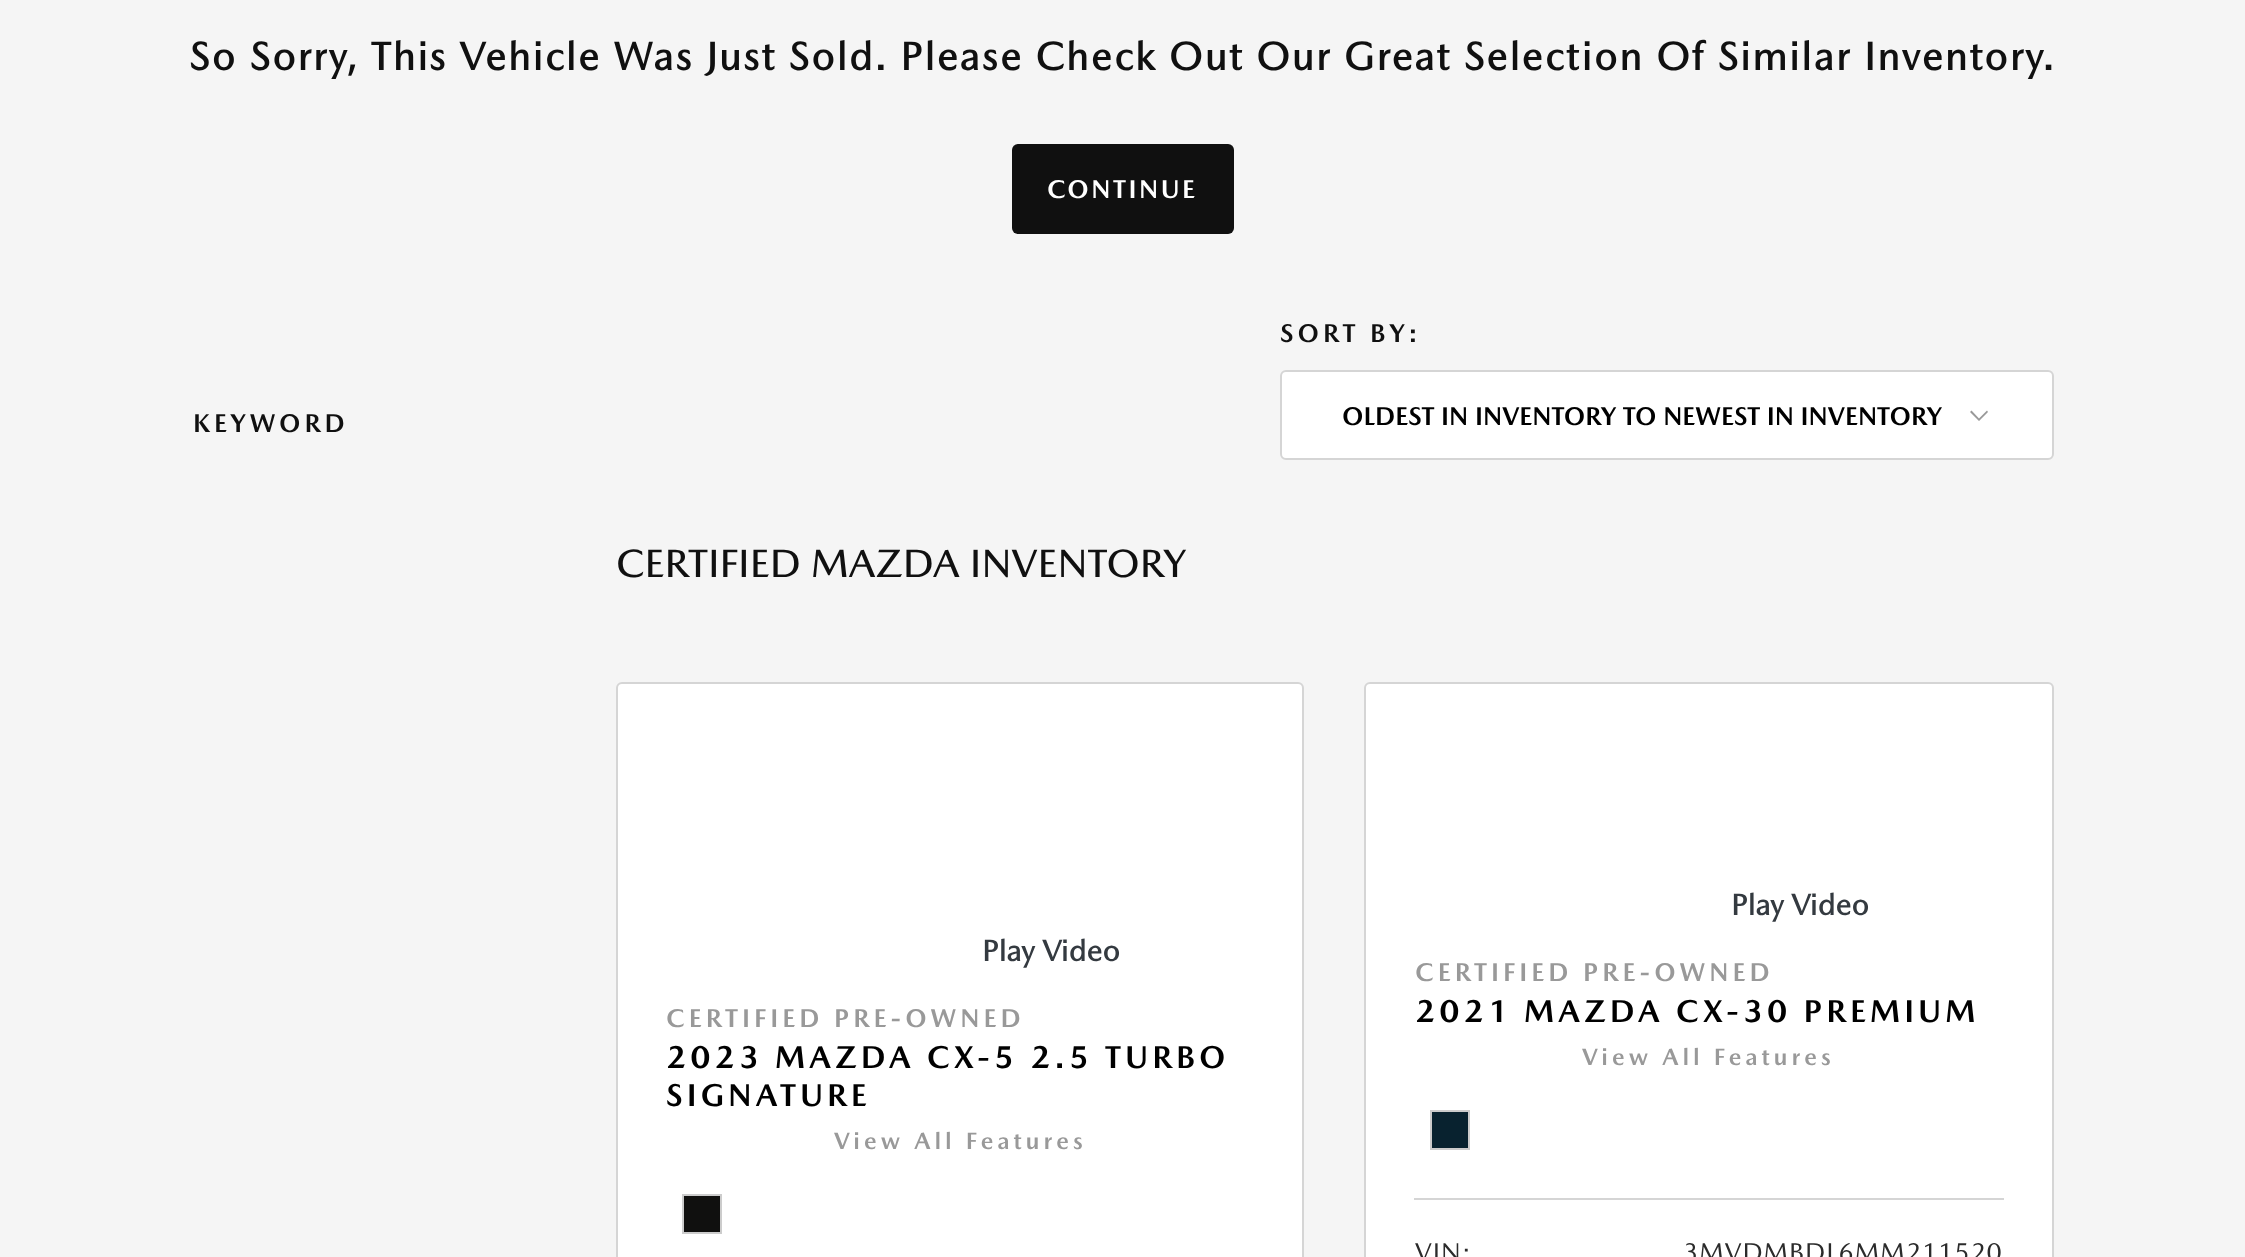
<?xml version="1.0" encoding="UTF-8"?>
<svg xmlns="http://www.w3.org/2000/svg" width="2245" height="1257">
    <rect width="100%" height="100%" fill="#F5F5F5"/>
    <text x="189" y="70" font-family="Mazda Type" font-size="40" font-weight="700" letter-spacing="2" fill="#101010">So Sorry, This Vehicle Was Just Sold. Please Check Out Our Great Selection Of Similar Inventory.</text>
    <rect x="1012" y="144" width="222" height="90" rx="6" fill="#101010"/>
    <text x="1047" y="198" font-family="'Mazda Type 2'" font-size="26" font-weight="700" letter-spacing="2.5" fill="#FFFFFF">CONTINUE</text>
    <text x="193" y="432" font-family="'Mazda Type 2'" font-size="26" font-weight="700" letter-spacing="4" fill="#101010">KEYWORD</text>
    <text x="1280" y="342" font-family="'Mazda Type 2'" font-size="26" font-weight="700" letter-spacing="4" fill="#101010">SORT BY:</text>
    <rect x="1281" y="371" width="772" height="88" rx="5" fill="#FFFFFF" stroke="#D5D5D5" stroke-width="2"/>
    <text x="1342" y="425" font-family="'Mazda Type 2'" font-size="26" font-weight="700" fill="#000000">OLDEST IN INVENTORY TO NEWEST IN INVENTORY</text>
    <path d="M 1979 421 L 1970 412 L 1971.5 410.5 L 1979 418.5 L 1987 410.5 L 1988 412 Z" fill="#999999"/>
    <text x="616" y="577" font-family="Mazda Type" font-size="40" font-weight="500" fill="#101010">CERTIFIED MAZDA INVENTORY</text>
    <rect x="617" y="683" width="686" height="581" rx="5" fill="#FFFFFF" stroke="#D5D5D5" stroke-width="2"/>
    <text x="982" y="961" font-family="Mazda Type" font-size="30" font-weight="700" fill="#343A40">Play Video</text>
    <text x="666" y="1027" font-family="'Mazda Type 2'" font-size="26" font-weight="700" letter-spacing="4" fill="#999999">CERTIFIED PRE-OWNED</text>
    <text font-family="'Mazda Type 2'" font-size="32" font-weight="700" letter-spacing="4" fill="#000000">
        <tspan x="666" y="1068">2023 MAZDA CX-5 2.5 TURBO</tspan>
        <tspan x="666" y="1106">SIGNATURE</tspan>
    </text>
    <text x="834" y="1149" font-family="'Mazda Type 2'" font-size="24" font-weight="700" letter-spacing="4" fill="#999999">View All Features</text>
    <rect x="683" y="1195" width="38" height="38" fill="#10100F" stroke="#CCCCCC" stroke-width="2"/>
    <rect x="1365" y="683" width="688" height="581" rx="5" fill="#FFFFFF" stroke="#D5D5D5" stroke-width="2"/>
    <text x="1731" y="915" font-family="Mazda Type" font-size="30" font-weight="700" fill="#343A40">Play Video</text>
    <text x="1415" y="981" font-family="'Mazda Type 2'" font-size="26" font-weight="700" letter-spacing="4" fill="#999999">CERTIFIED PRE-OWNED</text>
    <text x="1415" y="1022" font-family="'Mazda Type 2'" font-size="32" font-weight="700" letter-spacing="4" fill="#000000">2021 MAZDA CX-30 PREMIUM</text>
    <text x="1582" y="1065" font-family="'Mazda Type 2'" font-size="24" font-weight="700" letter-spacing="4" fill="#999999">View All Features</text>
    <rect x="1431" y="1111" width="38" height="38" fill="#08222F" stroke="#CCCCCC" stroke-width="2"/>
    <rect x="1414" y="1198" width="590" height="2" fill="#D5D5D5"/>
    <text x="1415" y="1261" font-family="Mazda Type" font-size="26" letter-spacing="1" fill="#2B2B2B">VIN:</text>
    <text x="1683" y="1261" font-family="Mazda Type" font-size="26" letter-spacing="1" fill="#2B2B2B">3MVDMBDL6MM211520</text>
</svg>
